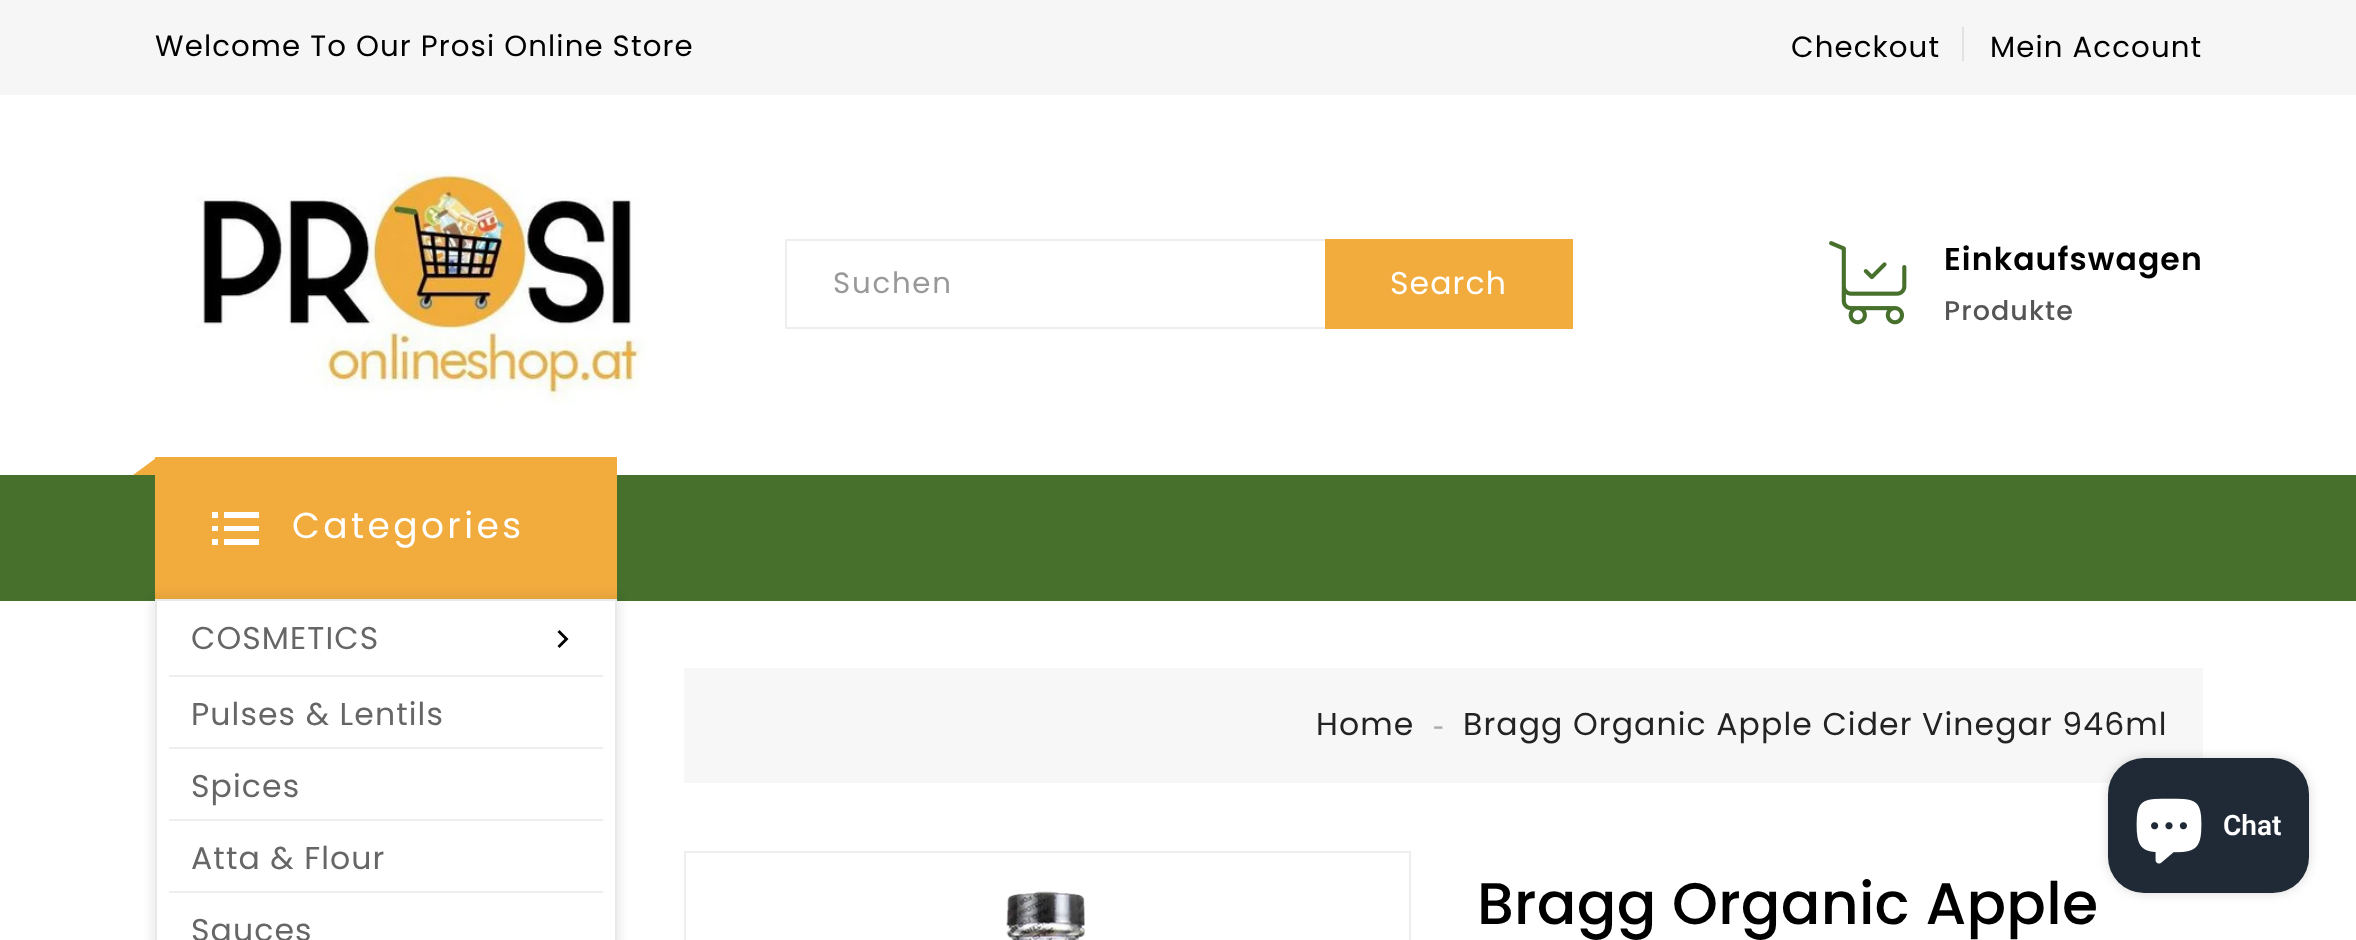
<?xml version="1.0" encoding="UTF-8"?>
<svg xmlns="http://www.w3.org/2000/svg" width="2356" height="940">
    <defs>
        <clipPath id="clip1"><path d="M 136 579 H 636 V 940 H 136 Z M 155 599 H 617 V 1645 H 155 Z" clip-rule="evenodd"/></clipPath>
        <filter id="blur1" x="-50%" y="-200%" width="200%" height="500%"><feGaussianBlur stdDeviation="4.5"/></filter>
        <filter id="blur2" x="-50%" y="-200%" width="200%" height="500%"><feGaussianBlur stdDeviation="5.5"/></filter>
    </defs>
    <rect width="100%" height="100%" fill="#FFFFFF"/>
    <rect x="0" y="0" width="2356" height="95" fill="#F6F6F6"/>
    <text x="155" y="56" font-family="Poppins" font-size="29.25" letter-spacing="1.1" fill="#000000">Welcome To Our Prosi Online Store</text>
    <text x="1791" y="57" font-family="Poppins" font-size="29.25" letter-spacing="1.1" fill="#000000">Checkout</text>
    <rect x="1962" y="27" width="2" height="34" fill="#E2E2E2"/>
    <text x="1990" y="57" font-family="Poppins" font-size="29.25" letter-spacing="1.1" fill="#000000">Mein Account</text>
    <image x="196" y="171" width="449" height="233" href="img_01.png"/>
    <rect x="786" y="240" width="786" height="88" fill="none" stroke="#EEEEEE" stroke-width="2"/>
    <text x="833" y="293" font-family="Poppins" font-size="29.25" letter-spacing="1.75" fill="#999999">Suchen</text>
    <rect x="1325" y="239" width="248" height="90" fill="#F2AC3D"/>
    <text x="1390" y="294" font-family="Poppins" font-size="31.5" letter-spacing="1.1" fill="#FFFFFF">Search</text>
    <image x="1829" y="241" width="78" height="84" href="img_02.png"/>
    <text x="1944" y="270" font-family="Poppins" font-size="31.5" font-weight="600" letter-spacing="1.1" fill="#000000">Einkaufswagen</text>
    <text x="1944" y="320" font-family="Poppins" font-size="27" font-weight="500" letter-spacing="1.1" fill="#555555">Produkte</text>
    <rect x="0" y="475" width="2356" height="126" fill="#46702C"/>
    <rect x="155" y="457" width="462" height="142" fill="#F2AC3D"/>
    <path d="M 157.5 475 H 133 L 157.5 457 Z" fill="#F2AC3D"/>
    <rect x="212" y="512" width="6" height="6" fill="#FFFFFF"/>
    <rect x="224" y="512" width="35" height="6" fill="#FFFFFF"/>
    <rect x="212" y="526" width="6" height="5" fill="#FFFFFF"/>
    <rect x="224" y="526" width="35" height="5" fill="#FFFFFF"/>
    <rect x="212" y="539" width="6" height="6" fill="#FFFFFF"/>
    <rect x="224" y="539" width="35" height="6" fill="#FFFFFF"/>
    <text x="292" y="538" font-family="Poppins" font-size="36" letter-spacing="3.4" fill="#FFFFFF">Categories</text>
    <g clip-path="url(#clip1)">
        <rect x="151" y="594" width="470" height="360" fill="#000000" fill-opacity="0.07" filter="url(#blur1)"/>
    </g>
    <rect x="156" y="600" width="460" height="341" fill="none" stroke="#E9E9E9" stroke-width="2"/>
    <text x="191" y="649" font-family="Poppins" font-size="31.5" letter-spacing="1.1" fill="#666666">COSMETICS</text>
    <path d="M 557.5 646 L 564.5 639 L 557.5 632 L 559.5 630 L 568.5 639 L 559.5 648 Z" fill="#000000"/>
    <rect x="169" y="675" width="434" height="2" fill="#EEEEEE"/>
    <text x="191" y="725" font-family="Poppins" font-size="31.5" letter-spacing="1.1" fill="#666666">Pulses &amp; Lentils</text>
    <rect x="169" y="747" width="434" height="2" fill="#EEEEEE"/>
    <text x="191" y="797" font-family="Poppins" font-size="31.5" letter-spacing="1.1" fill="#666666">Spices</text>
    <rect x="169" y="819" width="434" height="2" fill="#EEEEEE"/>
    <text x="191" y="869" font-family="Poppins" font-size="31.5" letter-spacing="1.1" fill="#666666">Atta &amp; Flour</text>
    <rect x="169" y="891" width="434" height="2" fill="#EEEEEE"/>
    <text x="191" y="941" font-family="Poppins" font-size="31.5" letter-spacing="1.1" fill="#666666">Sauces</text>
    <rect x="684" y="668" width="1519" height="115" fill="#F7F7F7"/>
    <text x="1316" y="735" font-family="Poppins" font-size="31.5" letter-spacing="1.1" fill="#232323">Home</text>
    <text x="1433" y="735" font-family="Liberation Serif" font-size="31.5" letter-spacing="1.1" fill="#ACAAA6">‐</text>
    <text x="1463" y="735" font-family="Poppins" font-size="31.5" letter-spacing="1.1" fill="#232323">Bragg Organic Apple Cider Vinegar 946ml</text>
    <rect x="685" y="852" width="725" height="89" fill="none" stroke="#EEEEEE" stroke-width="2"/>
    <image x="1006" y="891" width="79" height="49" href="img_03.png"/>
    <text x="1477" y="924" font-family="Poppins" font-size="58.5" font-weight="500" letter-spacing="0.25" fill="#000000">Bragg Organic Apple</text>
    <rect x="2108" y="758" width="201" height="135" rx="36" fill="#000000" fill-opacity="0.15" filter="url(#blur2)"/>
    <rect x="2108" y="758" width="201" height="135" rx="36" fill="#202A36"/>
    <image x="2136" y="798" width="66" height="66" href="img_04.png"/>
    <text x="2223" y="835" font-family="Roboto" font-size="28" font-weight="600" fill="#FFFFFF">Chat</text>
</svg>
